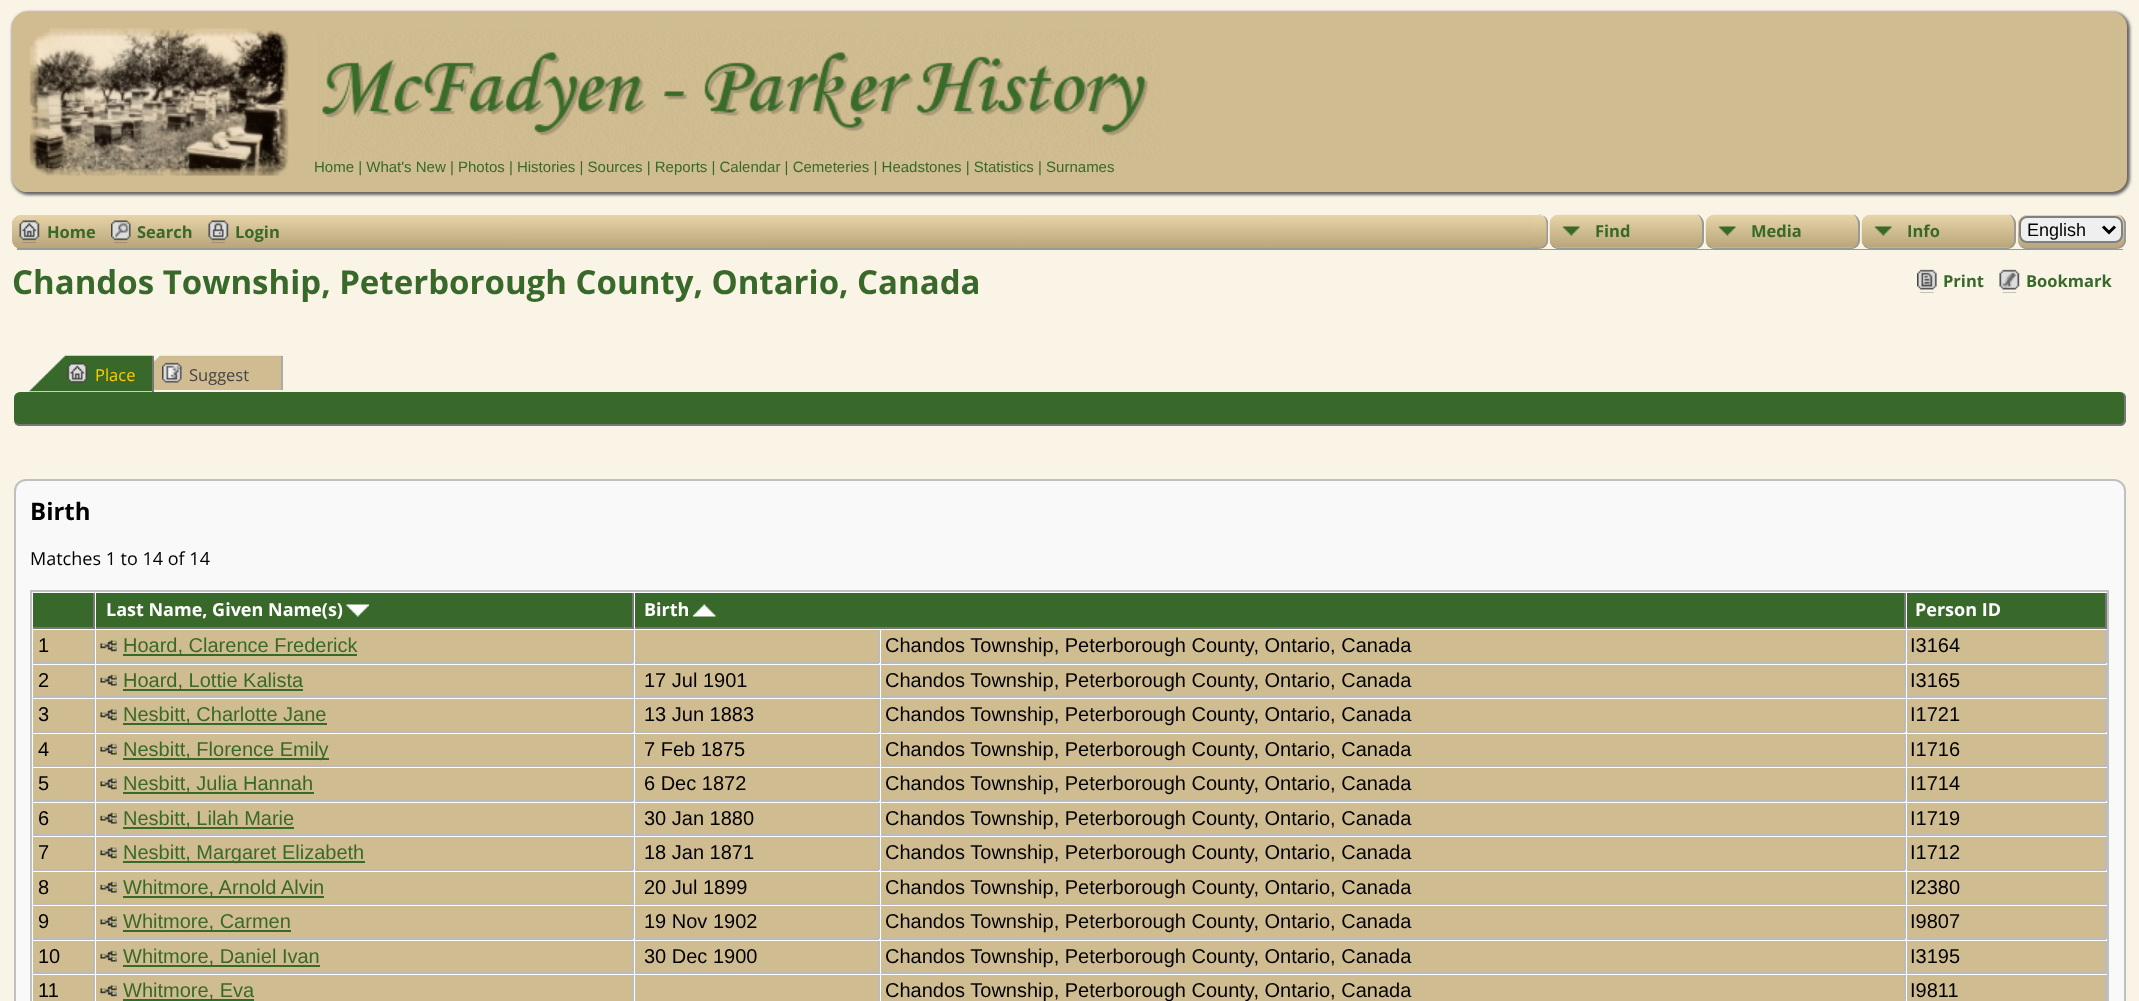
<?xml version="1.0" encoding="UTF-8"?>
<svg xmlns="http://www.w3.org/2000/svg" width="2139" height="1001">
    <defs>
        <filter id="blur1" x="-50%" y="-200%" width="200%" height="500%"><feGaussianBlur stdDeviation="1.5"/></filter>
        <clipPath id="clip1"><rect x="12" y="215" width="2115" height="34" rx="9"/></clipPath>
        <linearGradient id="g1" gradientUnits="userSpaceOnUse" x1="1070" y1="214" x2="1070" y2="248"><stop offset="0" stop-color="#E8D5A9"/><stop offset="1" stop-color="#B8A579"/></linearGradient>
        <clipPath id="clip2"><path d="M 1532 215 H 1539 C 1544 215 1548 219 1548 224 V 240 C 1548 245 1544 249 1539 249 H 1532 Z"/></clipPath>
        <linearGradient id="g2" gradientUnits="userSpaceOnUse" x1="1539" y1="215" x2="1539" y2="248"><stop offset="0" stop-color="#E8D5A9"/><stop offset="1" stop-color="#B8A579"/></linearGradient>
        <linearGradient id="g3" gradientUnits="userSpaceOnUse" x1="1539" y1="248" x2="1539" y2="281"><stop offset="0" stop-color="#E8D5A9"/><stop offset="1" stop-color="#B8A579"/></linearGradient>
        <clipPath id="clip3"><rect x="2018" y="215" width="108" height="34" rx="9"/></clipPath>
        <linearGradient id="g4" gradientUnits="userSpaceOnUse" x1="2071" y1="215" x2="2071" y2="248"><stop offset="0" stop-color="#E8D5A9"/><stop offset="1" stop-color="#B8A579"/></linearGradient>
        <linearGradient id="g5" gradientUnits="userSpaceOnUse" x1="2071" y1="248" x2="2071" y2="281"><stop offset="0" stop-color="#E8D5A9"/><stop offset="1" stop-color="#B8A579"/></linearGradient>
    </defs>
    <rect width="100%" height="100%" fill="#FAF4E6"/>
    <rect x="12" y="12" width="2118" height="183" rx="17" fill="#666666" filter="url(#blur1)"/>
    <rect x="12" y="12" width="2115" height="180" rx="15" fill="#D0BC91"/>
    <rect x="12" y="12" width="294" height="180" rx="15" fill="#D0BC91"/>
    <image x="29" y="28" width="260" height="148" href="img_01.png"/>
    <image x="318" y="30" width="843" height="129" href="img_02.png"/>
    <text x="314" y="172" font-family="Liberation Sans" font-size="15" fill="#39692A">Home | What's New | Photos | Histories | Sources | Reports | Calendar | Cemeteries | Headstones | Statistics | Surnames</text>
    <rect x="12" y="215" width="2115" height="34" rx="9" fill="#D0BC91"/>
    <g clip-path="url(#clip1)">
        <path d="M 21 215 H 2118 C 2123 215 2127 219 2127 224 V 248 H 12 V 224 C 12 219 16 215 21 215 Z" fill="url(#g1)"/>
    </g>
    <rect x="17" y="248" width="2106" height="2" fill="#999999"/>
    <image x="19" y="220" width="21" height="23" href="img_03.png"/>
    <text x="47" y="238" font-family="Open Sans" font-size="16.5" font-weight="700" fill="#39692A">Home</text>
    <image x="111" y="220" width="20" height="23" href="img_04.png"/>
    <text x="137" y="238" font-family="Open Sans" font-size="16.5" font-weight="700" fill="#39692A">Search</text>
    <image x="208" y="220" width="21" height="23" href="img_05.png"/>
    <text x="235" y="238" font-family="Open Sans" font-size="16.5" font-weight="700" fill="#39692A">Login</text>
    <rect x="1539" y="215" width="588" height="34" fill="#FAF4E6"/>
    <g clip-path="url(#clip2)">
        <rect x="1532" y="215" width="16" height="33" fill="url(#g2)"/>
        <rect x="1532" y="248" width="16" height="1" fill="url(#g3)"/>
    </g>
    <path d="M 1531.5 214.5 C 1538 214.5 1546 213.5 1548 221.5 V 242 C 1546 250 1538 249 1531.5 249 Z M 1531.5 214.5 H 1540.5 C 1548 216.5 1546.5 226 1546.5 232 V 241.5 C 1545 249 1537 247.5 1531.5 247.5 Z" fill="#999999" fill-rule="evenodd"/>
    <rect x="1550" y="215" width="154" height="34" rx="9" fill="#D0BC91"/>
    <image x="1549" y="214" width="154" height="34" href="img_06.png"/>
    <path d="M 1558 214 H 1695 C 1700 214 1704 219 1704 224 V 240 C 1704 245 1700 249 1695 249 H 1558 C 1554 249 1550 245 1550 240 V 224 C 1550 219 1554 214 1558 214 Z M 1558 214 H 1695 C 1699 214 1702 219 1702 224 V 240 C 1702 244 1699 248 1695 248 H 1558 C 1554 248 1550 244 1550 240 V 224 C 1550 219 1554 214 1558 214 Z" fill="#999999" fill-rule="evenodd"/>
    <text x="1595" y="237" font-family="Open Sans" font-size="16.5" font-weight="700" fill="#39692A">Find</text>
    <rect x="1706" y="215" width="154" height="34" rx="9" fill="#D0BC91"/>
    <image x="1705" y="214" width="154" height="34" href="img_07.png"/>
    <path d="M 1714 214 H 1851 C 1856 214 1860 219 1860 224 V 240 C 1860 245 1856 249 1851 249 H 1714 C 1710 249 1706 245 1706 240 V 224 C 1706 219 1710 214 1714 214 Z M 1714 214 H 1851 C 1855 214 1858 219 1858 224 V 240 C 1858 244 1855 248 1851 248 H 1714 C 1710 248 1706 244 1706 240 V 224 C 1706 219 1710 214 1714 214 Z" fill="#999999" fill-rule="evenodd"/>
    <text x="1751" y="237" font-family="Open Sans" font-size="16.5" font-weight="700" fill="#39692A">Media</text>
    <rect x="1862" y="215" width="154" height="34" rx="9" fill="#D0BC91"/>
    <image x="1861" y="214" width="154" height="34" href="img_06.png"/>
    <path d="M 1870 214 H 2007 C 2012 214 2016 219 2016 224 V 240 C 2016 245 2012 249 2007 249 H 1870 C 1866 249 1862 245 1862 240 V 224 C 1862 219 1866 214 1870 214 Z M 1870 214 H 2007 C 2011 214 2014 219 2014 224 V 240 C 2014 244 2011 248 2007 248 H 1870 C 1866 248 1862 244 1862 240 V 224 C 1862 219 1866 214 1870 214 Z" fill="#999999" fill-rule="evenodd"/>
    <text x="1907" y="237" font-family="Open Sans" font-size="16.5" font-weight="700" fill="#39692A">Info</text>
    <rect x="2018" y="215" width="108" height="34" rx="9" fill="#D0BC91"/>
    <g clip-path="url(#clip3)">
        <path d="M 2027 215 H 2117 C 2122 215 2126 219 2126 224 V 248 H 2018 V 224 C 2018 219 2022 215 2027 215 Z" fill="url(#g4)"/>
        <rect x="2018" y="248" width="108" height="1" fill="url(#g5)"/>
    </g>
    <path d="M 2026 214 H 2116 C 2121 214 2126 219 2126 224 V 240 C 2126 245 2121 249 2116 249 H 2026 C 2022 249 2018 245 2018 240 V 224 C 2018 219 2022 214 2026 214 Z M 2026 214 H 2116 C 2121 214 2124 219 2124 224 V 240 C 2124 244 2121 248 2116 248 H 2026 C 2022 248 2018 244 2018 240 V 224 C 2018 219 2022 214 2026 214 Z" fill="#999999" fill-rule="evenodd"/>
    <rect x="2020" y="217" width="102" height="25" rx="7" fill="#EFEFEF" stroke="#808080" stroke-width="2"/>
    <path d="M 2103 226.5 L 2109 232.5 L 2115 226.5" fill="none" stroke="#000000" stroke-width="3"/>
    <text x="2027" y="236" font-family="Liberation Sans" font-size="18" fill="#000000">English</text>
    <text x="12" y="294" font-family="Open Sans" font-size="33" font-weight="700" fill="#39692A">Chandos Township, Peterborough County, Ontario, Canada</text>
    <image x="1917" y="269" width="20" height="24" href="img_08.png"/>
    <text x="1943" y="287" font-family="Open Sans" font-size="16.5" font-weight="700" fill="#39692A">Print</text>
    <image x="1999" y="269" width="21" height="24" href="img_09.png"/>
    <text x="2026" y="287" font-family="Open Sans" font-size="16.5" font-weight="700" fill="#39692A">Bookmark</text>
    <image x="27" y="355" width="126" height="37" href="img_10.png"/>
    <rect x="152" y="356" width="2" height="36" fill="#777777"/>
    <image x="67" y="362" width="21" height="21" href="img_11.png"/>
    <text x="95" y="381" font-family="Open Sans" font-size="16.5" fill="#FFCC00">Place</text>
    <image x="154" y="355" width="128" height="35" href="img_12.png"/>
    <rect x="281" y="356" width="2" height="34" fill="#AAAAAA"/>
    <image x="162" y="362" width="20" height="21" href="img_13.png"/>
    <text x="189" y="381" font-family="Open Sans" font-size="16.5" fill="#444444">Suggest</text>
    <rect x="14" y="392" width="2112" height="34" rx="6" fill="#39692A"/>
    <path d="M 20 392 H 2120 C 2123 392 2126 394 2126 398 V 420 C 2126 423 2123 426 2120 426 H 20 C 16 426 14 423 14 420 V 398 C 14 394 16 392 20 392 Z M 20 392 H 2120 C 2122 392 2124 394 2124 398 V 420 C 2124 422 2122 424 2120 424 H 20 C 16 424 14 422 14 420 V 398 C 14 394 16 392 20 392 Z" fill="#777777" fill-rule="evenodd"/>
    <rect x="15" y="480" width="2110" height="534" rx="11" fill="#F9F9F9" stroke="#C0C0C0" stroke-width="2"/>
    <text x="30" y="520" font-family="Open Sans" font-size="24" font-weight="700" fill="#000000">Birth</text>
    <text x="30" y="565" font-family="Open Sans" font-size="18" fill="#000000">Matches 1 to 14 of 14</text>
    <rect x="31" y="591" width="2077" height="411" fill="#FFFFFF" stroke="#C0C0C0" stroke-width="2"/>
    <rect x="33" y="593" width="60" height="34" fill="#39692A"/>
    <rect x="93" y="593" width="2" height="36" fill="#777777"/>
    <rect x="33" y="627" width="62" height="2" fill="#777777"/>
    <rect x="96" y="593" width="536" height="34" fill="#39692A"/>
    <rect x="632" y="593" width="2" height="36" fill="#777777"/>
    <rect x="96" y="627" width="537" height="2" fill="#777777"/>
    <text x="106" y="616" font-family="Open Sans" font-size="18" font-weight="700" fill="#FFFFFF">Last Name, Given Name(s)</text>
    <image x="346" y="604" width="23" height="13" href="img_14.png"/>
    <rect x="635" y="593" width="1269" height="34" fill="#39692A"/>
    <rect x="1904" y="593" width="2" height="36" fill="#777777"/>
    <rect x="635" y="627" width="1270" height="2" fill="#777777"/>
    <text x="644" y="616" font-family="Open Sans" font-size="18" font-weight="700" fill="#FFFFFF">Birth</text>
    <image x="693" y="604" width="23" height="13" href="img_15.png"/>
    <rect x="1907" y="593" width="198" height="34" fill="#39692A"/>
    <rect x="2105" y="593" width="2" height="36" fill="#777777"/>
    <rect x="1907" y="627" width="199" height="2" fill="#777777"/>
    <text x="1915" y="616" font-family="Open Sans" font-size="18" font-weight="700" fill="#FFFFFF">Person ID</text>
    <rect x="33" y="630" width="60" height="32" fill="#D0BC91"/>
    <rect x="93" y="630" width="2" height="33" fill="#BBBBBB"/>
    <rect x="33" y="662" width="62" height="2" fill="#BBBBBB"/>
    <text x="38" y="652" font-family="Liberation Sans" font-size="20" fill="#000000">1</text>
    <rect x="96" y="630" width="536" height="32" fill="#D0BC91"/>
    <rect x="632" y="630" width="2" height="33" fill="#BBBBBB"/>
    <rect x="96" y="662" width="537" height="2" fill="#BBBBBB"/>
    <image x="100" y="640" width="17" height="12" href="img_16.png"/>
    <rect x="123" y="654" width="234" height="2" fill="#39692A"/>
    <text x="123" y="652" font-family="Liberation Sans" font-size="20" fill="#39692A">Hoard, Clarence Frederick</text>
    <rect x="635" y="630" width="243" height="32" fill="#D0BC91"/>
    <rect x="878" y="630" width="2" height="33" fill="#BBBBBB"/>
    <rect x="635" y="662" width="244" height="2" fill="#BBBBBB"/>
    <rect x="881" y="630" width="1023" height="32" fill="#D0BC91"/>
    <rect x="1904" y="630" width="2" height="33" fill="#BBBBBB"/>
    <rect x="881" y="662" width="1024" height="2" fill="#BBBBBB"/>
    <text x="885" y="652" font-family="Liberation Sans" font-size="20" fill="#000000">Chandos Township, Peterborough County, Ontario, Canada</text>
    <rect x="1907" y="630" width="198" height="32" fill="#D0BC91"/>
    <rect x="2105" y="630" width="2" height="33" fill="#BBBBBB"/>
    <rect x="1907" y="662" width="199" height="2" fill="#BBBBBB"/>
    <text x="1910" y="652" font-family="Liberation Sans" font-size="20" fill="#000000">I3164</text>
    <rect x="33" y="665" width="60" height="31" fill="#D0BC91"/>
    <rect x="93" y="665" width="2" height="33" fill="#BBBBBB"/>
    <rect x="33" y="696" width="62" height="2" fill="#BBBBBB"/>
    <text x="38" y="687" font-family="Liberation Sans" font-size="20" fill="#000000">2</text>
    <rect x="96" y="665" width="536" height="31" fill="#D0BC91"/>
    <rect x="632" y="665" width="2" height="33" fill="#BBBBBB"/>
    <rect x="96" y="696" width="537" height="2" fill="#BBBBBB"/>
    <image x="100" y="674" width="17" height="12" href="img_17.png"/>
    <rect x="123" y="689" width="180" height="2" fill="#39692A"/>
    <text x="123" y="687" font-family="Liberation Sans" font-size="20" fill="#39692A">Hoard, Lottie Kalista</text>
    <rect x="635" y="665" width="243" height="31" fill="#D0BC91"/>
    <rect x="878" y="665" width="2" height="33" fill="#BBBBBB"/>
    <rect x="635" y="696" width="244" height="2" fill="#BBBBBB"/>
    <text x="644" y="687" font-family="Liberation Sans" font-size="20" fill="#000000">17 Jul 1901</text>
    <rect x="881" y="665" width="1023" height="31" fill="#D0BC91"/>
    <rect x="1904" y="665" width="2" height="33" fill="#BBBBBB"/>
    <rect x="881" y="696" width="1024" height="2" fill="#BBBBBB"/>
    <text x="885" y="687" font-family="Liberation Sans" font-size="20" fill="#000000">Chandos Township, Peterborough County, Ontario, Canada</text>
    <rect x="1907" y="665" width="198" height="31" fill="#D0BC91"/>
    <rect x="2105" y="665" width="2" height="33" fill="#BBBBBB"/>
    <rect x="1907" y="696" width="199" height="2" fill="#BBBBBB"/>
    <text x="1910" y="687" font-family="Liberation Sans" font-size="20" fill="#000000">I3165</text>
    <rect x="33" y="699" width="60" height="32" fill="#D0BC91"/>
    <rect x="93" y="699" width="2" height="33" fill="#BBBBBB"/>
    <rect x="33" y="731" width="62" height="2" fill="#BBBBBB"/>
    <text x="38" y="721" font-family="Liberation Sans" font-size="20" fill="#000000">3</text>
    <rect x="96" y="699" width="536" height="32" fill="#D0BC91"/>
    <rect x="632" y="699" width="2" height="33" fill="#BBBBBB"/>
    <rect x="96" y="731" width="537" height="2" fill="#BBBBBB"/>
    <image x="100" y="709" width="17" height="12" href="img_16.png"/>
    <rect x="123" y="723" width="204" height="2" fill="#39692A"/>
    <text x="123" y="721" font-family="Liberation Sans" font-size="20" fill="#39692A">Nesbitt, Charlotte Jane</text>
    <rect x="635" y="699" width="243" height="32" fill="#D0BC91"/>
    <rect x="878" y="699" width="2" height="33" fill="#BBBBBB"/>
    <rect x="635" y="731" width="244" height="2" fill="#BBBBBB"/>
    <text x="644" y="721" font-family="Liberation Sans" font-size="20" fill="#000000">13 Jun 1883</text>
    <rect x="881" y="699" width="1023" height="32" fill="#D0BC91"/>
    <rect x="1904" y="699" width="2" height="33" fill="#BBBBBB"/>
    <rect x="881" y="731" width="1024" height="2" fill="#BBBBBB"/>
    <text x="885" y="721" font-family="Liberation Sans" font-size="20" fill="#000000">Chandos Township, Peterborough County, Ontario, Canada</text>
    <rect x="1907" y="699" width="198" height="32" fill="#D0BC91"/>
    <rect x="2105" y="699" width="2" height="33" fill="#BBBBBB"/>
    <rect x="1907" y="731" width="199" height="2" fill="#BBBBBB"/>
    <text x="1910" y="721" font-family="Liberation Sans" font-size="20" fill="#000000">I1721</text>
    <rect x="33" y="734" width="60" height="31" fill="#D0BC91"/>
    <rect x="93" y="734" width="2" height="33" fill="#BBBBBB"/>
    <rect x="33" y="765" width="62" height="2" fill="#BBBBBB"/>
    <text x="38" y="756" font-family="Liberation Sans" font-size="20" fill="#000000">4</text>
    <rect x="96" y="734" width="536" height="31" fill="#D0BC91"/>
    <rect x="632" y="734" width="2" height="33" fill="#BBBBBB"/>
    <rect x="96" y="765" width="537" height="2" fill="#BBBBBB"/>
    <image x="100" y="743" width="17" height="12" href="img_17.png"/>
    <rect x="123" y="758" width="206" height="2" fill="#39692A"/>
    <text x="123" y="756" font-family="Liberation Sans" font-size="20" fill="#39692A">Nesbitt, Florence Emily</text>
    <rect x="635" y="734" width="243" height="31" fill="#D0BC91"/>
    <rect x="878" y="734" width="2" height="33" fill="#BBBBBB"/>
    <rect x="635" y="765" width="244" height="2" fill="#BBBBBB"/>
    <text x="644" y="756" font-family="Liberation Sans" font-size="20" fill="#000000">7 Feb 1875</text>
    <rect x="881" y="734" width="1023" height="31" fill="#D0BC91"/>
    <rect x="1904" y="734" width="2" height="33" fill="#BBBBBB"/>
    <rect x="881" y="765" width="1024" height="2" fill="#BBBBBB"/>
    <text x="885" y="756" font-family="Liberation Sans" font-size="20" fill="#000000">Chandos Township, Peterborough County, Ontario, Canada</text>
    <rect x="1907" y="734" width="198" height="31" fill="#D0BC91"/>
    <rect x="2105" y="734" width="2" height="33" fill="#BBBBBB"/>
    <rect x="1907" y="765" width="199" height="2" fill="#BBBBBB"/>
    <text x="1910" y="756" font-family="Liberation Sans" font-size="20" fill="#000000">I1716</text>
    <rect x="33" y="768" width="60" height="32" fill="#D0BC91"/>
    <rect x="93" y="768" width="2" height="33" fill="#BBBBBB"/>
    <rect x="33" y="800" width="62" height="2" fill="#BBBBBB"/>
    <text x="38" y="790" font-family="Liberation Sans" font-size="20" fill="#000000">5</text>
    <rect x="96" y="768" width="536" height="32" fill="#D0BC91"/>
    <rect x="632" y="768" width="2" height="33" fill="#BBBBBB"/>
    <rect x="96" y="800" width="537" height="2" fill="#BBBBBB"/>
    <image x="100" y="778" width="17" height="12" href="img_16.png"/>
    <rect x="123" y="792" width="191" height="2" fill="#39692A"/>
    <text x="123" y="790" font-family="Liberation Sans" font-size="20" fill="#39692A">Nesbitt, Julia Hannah</text>
    <rect x="635" y="768" width="243" height="32" fill="#D0BC91"/>
    <rect x="878" y="768" width="2" height="33" fill="#BBBBBB"/>
    <rect x="635" y="800" width="244" height="2" fill="#BBBBBB"/>
    <text x="644" y="790" font-family="Liberation Sans" font-size="20" fill="#000000">6 Dec 1872</text>
    <rect x="881" y="768" width="1023" height="32" fill="#D0BC91"/>
    <rect x="1904" y="768" width="2" height="33" fill="#BBBBBB"/>
    <rect x="881" y="800" width="1024" height="2" fill="#BBBBBB"/>
    <text x="885" y="790" font-family="Liberation Sans" font-size="20" fill="#000000">Chandos Township, Peterborough County, Ontario, Canada</text>
    <rect x="1907" y="768" width="198" height="32" fill="#D0BC91"/>
    <rect x="2105" y="768" width="2" height="33" fill="#BBBBBB"/>
    <rect x="1907" y="800" width="199" height="2" fill="#BBBBBB"/>
    <text x="1910" y="790" font-family="Liberation Sans" font-size="20" fill="#000000">I1714</text>
    <rect x="33" y="803" width="60" height="31" fill="#D0BC91"/>
    <rect x="93" y="803" width="2" height="33" fill="#BBBBBB"/>
    <rect x="33" y="834" width="62" height="2" fill="#BBBBBB"/>
    <text x="38" y="825" font-family="Liberation Sans" font-size="20" fill="#000000">6</text>
    <rect x="96" y="803" width="536" height="31" fill="#D0BC91"/>
    <rect x="632" y="803" width="2" height="33" fill="#BBBBBB"/>
    <rect x="96" y="834" width="537" height="2" fill="#BBBBBB"/>
    <image x="100" y="812" width="17" height="12" href="img_17.png"/>
    <rect x="123" y="827" width="171" height="2" fill="#39692A"/>
    <text x="123" y="825" font-family="Liberation Sans" font-size="20" fill="#39692A">Nesbitt, Lilah Marie</text>
    <rect x="635" y="803" width="243" height="31" fill="#D0BC91"/>
    <rect x="878" y="803" width="2" height="33" fill="#BBBBBB"/>
    <rect x="635" y="834" width="244" height="2" fill="#BBBBBB"/>
    <text x="644" y="825" font-family="Liberation Sans" font-size="20" fill="#000000">30 Jan 1880</text>
    <rect x="881" y="803" width="1023" height="31" fill="#D0BC91"/>
    <rect x="1904" y="803" width="2" height="33" fill="#BBBBBB"/>
    <rect x="881" y="834" width="1024" height="2" fill="#BBBBBB"/>
    <text x="885" y="825" font-family="Liberation Sans" font-size="20" fill="#000000">Chandos Township, Peterborough County, Ontario, Canada</text>
    <rect x="1907" y="803" width="198" height="31" fill="#D0BC91"/>
    <rect x="2105" y="803" width="2" height="33" fill="#BBBBBB"/>
    <rect x="1907" y="834" width="199" height="2" fill="#BBBBBB"/>
    <text x="1910" y="825" font-family="Liberation Sans" font-size="20" fill="#000000">I1719</text>
    <rect x="33" y="837" width="60" height="32" fill="#D0BC91"/>
    <rect x="93" y="837" width="2" height="33" fill="#BBBBBB"/>
    <rect x="33" y="869" width="62" height="2" fill="#BBBBBB"/>
    <text x="38" y="859" font-family="Liberation Sans" font-size="20" fill="#000000">7</text>
    <rect x="96" y="837" width="536" height="32" fill="#D0BC91"/>
    <rect x="632" y="837" width="2" height="33" fill="#BBBBBB"/>
    <rect x="96" y="869" width="537" height="2" fill="#BBBBBB"/>
    <image x="100" y="847" width="17" height="12" href="img_16.png"/>
    <rect x="123" y="861" width="242" height="2" fill="#39692A"/>
    <text x="123" y="859" font-family="Liberation Sans" font-size="20" fill="#39692A">Nesbitt, Margaret Elizabeth</text>
    <rect x="635" y="837" width="243" height="32" fill="#D0BC91"/>
    <rect x="878" y="837" width="2" height="33" fill="#BBBBBB"/>
    <rect x="635" y="869" width="244" height="2" fill="#BBBBBB"/>
    <text x="644" y="859" font-family="Liberation Sans" font-size="20" fill="#000000">18 Jan 1871</text>
    <rect x="881" y="837" width="1023" height="32" fill="#D0BC91"/>
    <rect x="1904" y="837" width="2" height="33" fill="#BBBBBB"/>
    <rect x="881" y="869" width="1024" height="2" fill="#BBBBBB"/>
    <text x="885" y="859" font-family="Liberation Sans" font-size="20" fill="#000000">Chandos Township, Peterborough County, Ontario, Canada</text>
    <rect x="1907" y="837" width="198" height="32" fill="#D0BC91"/>
    <rect x="2105" y="837" width="2" height="33" fill="#BBBBBB"/>
    <rect x="1907" y="869" width="199" height="2" fill="#BBBBBB"/>
    <text x="1910" y="859" font-family="Liberation Sans" font-size="20" fill="#000000">I1712</text>
    <rect x="33" y="872" width="60" height="31" fill="#D0BC91"/>
    <rect x="93" y="872" width="2" height="33" fill="#BBBBBB"/>
    <rect x="33" y="903" width="62" height="2" fill="#BBBBBB"/>
    <text x="38" y="894" font-family="Liberation Sans" font-size="20" fill="#000000">8</text>
    <rect x="96" y="872" width="536" height="31" fill="#D0BC91"/>
    <rect x="632" y="872" width="2" height="33" fill="#BBBBBB"/>
    <rect x="96" y="903" width="537" height="2" fill="#BBBBBB"/>
    <image x="100" y="881" width="17" height="12" href="img_17.png"/>
    <rect x="123" y="896" width="201" height="2" fill="#39692A"/>
    <text x="123" y="894" font-family="Liberation Sans" font-size="20" fill="#39692A">Whitmore, Arnold Alvin</text>
    <rect x="635" y="872" width="243" height="31" fill="#D0BC91"/>
    <rect x="878" y="872" width="2" height="33" fill="#BBBBBB"/>
    <rect x="635" y="903" width="244" height="2" fill="#BBBBBB"/>
    <text x="644" y="894" font-family="Liberation Sans" font-size="20" fill="#000000">20 Jul 1899</text>
    <rect x="881" y="872" width="1023" height="31" fill="#D0BC91"/>
    <rect x="1904" y="872" width="2" height="33" fill="#BBBBBB"/>
    <rect x="881" y="903" width="1024" height="2" fill="#BBBBBB"/>
    <text x="885" y="894" font-family="Liberation Sans" font-size="20" fill="#000000">Chandos Township, Peterborough County, Ontario, Canada</text>
    <rect x="1907" y="872" width="198" height="31" fill="#D0BC91"/>
    <rect x="2105" y="872" width="2" height="33" fill="#BBBBBB"/>
    <rect x="1907" y="903" width="199" height="2" fill="#BBBBBB"/>
    <text x="1910" y="894" font-family="Liberation Sans" font-size="20" fill="#000000">I2380</text>
    <rect x="33" y="906" width="60" height="32" fill="#D0BC91"/>
    <rect x="93" y="906" width="2" height="33" fill="#BBBBBB"/>
    <rect x="33" y="938" width="62" height="2" fill="#BBBBBB"/>
    <text x="38" y="928" font-family="Liberation Sans" font-size="20" fill="#000000">9</text>
    <rect x="96" y="906" width="536" height="32" fill="#D0BC91"/>
    <rect x="632" y="906" width="2" height="33" fill="#BBBBBB"/>
    <rect x="96" y="938" width="537" height="2" fill="#BBBBBB"/>
    <image x="100" y="916" width="17" height="12" href="img_16.png"/>
    <rect x="123" y="930" width="168" height="2" fill="#39692A"/>
    <text x="123" y="928" font-family="Liberation Sans" font-size="20" fill="#39692A">Whitmore, Carmen</text>
    <rect x="635" y="906" width="243" height="32" fill="#D0BC91"/>
    <rect x="878" y="906" width="2" height="33" fill="#BBBBBB"/>
    <rect x="635" y="938" width="244" height="2" fill="#BBBBBB"/>
    <text x="644" y="928" font-family="Liberation Sans" font-size="20" fill="#000000">19 Nov 1902</text>
    <rect x="881" y="906" width="1023" height="32" fill="#D0BC91"/>
    <rect x="1904" y="906" width="2" height="33" fill="#BBBBBB"/>
    <rect x="881" y="938" width="1024" height="2" fill="#BBBBBB"/>
    <text x="885" y="928" font-family="Liberation Sans" font-size="20" fill="#000000">Chandos Township, Peterborough County, Ontario, Canada</text>
    <rect x="1907" y="906" width="198" height="32" fill="#D0BC91"/>
    <rect x="2105" y="906" width="2" height="33" fill="#BBBBBB"/>
    <rect x="1907" y="938" width="199" height="2" fill="#BBBBBB"/>
    <text x="1910" y="928" font-family="Liberation Sans" font-size="20" fill="#000000">I9807</text>
    <rect x="33" y="941" width="60" height="31" fill="#D0BC91"/>
    <rect x="93" y="941" width="2" height="33" fill="#BBBBBB"/>
    <rect x="33" y="972" width="62" height="2" fill="#BBBBBB"/>
    <text x="38" y="963" font-family="Liberation Sans" font-size="20" fill="#000000">10</text>
    <rect x="96" y="941" width="536" height="31" fill="#D0BC91"/>
    <rect x="632" y="941" width="2" height="33" fill="#BBBBBB"/>
    <rect x="96" y="972" width="537" height="2" fill="#BBBBBB"/>
    <image x="100" y="950" width="17" height="12" href="img_17.png"/>
    <rect x="123" y="965" width="197" height="2" fill="#39692A"/>
    <text x="123" y="963" font-family="Liberation Sans" font-size="20" fill="#39692A">Whitmore, Daniel Ivan</text>
    <rect x="635" y="941" width="243" height="31" fill="#D0BC91"/>
    <rect x="878" y="941" width="2" height="33" fill="#BBBBBB"/>
    <rect x="635" y="972" width="244" height="2" fill="#BBBBBB"/>
    <text x="644" y="963" font-family="Liberation Sans" font-size="20" fill="#000000">30 Dec 1900</text>
    <rect x="881" y="941" width="1023" height="31" fill="#D0BC91"/>
    <rect x="1904" y="941" width="2" height="33" fill="#BBBBBB"/>
    <rect x="881" y="972" width="1024" height="2" fill="#BBBBBB"/>
    <text x="885" y="963" font-family="Liberation Sans" font-size="20" fill="#000000">Chandos Township, Peterborough County, Ontario, Canada</text>
    <rect x="1907" y="941" width="198" height="31" fill="#D0BC91"/>
    <rect x="2105" y="941" width="2" height="33" fill="#BBBBBB"/>
    <rect x="1907" y="972" width="199" height="2" fill="#BBBBBB"/>
    <text x="1910" y="963" font-family="Liberation Sans" font-size="20" fill="#000000">I3195</text>
    <rect x="33" y="975" width="60" height="26" fill="#D0BC91"/>
    <rect x="93" y="975" width="2" height="26" fill="#BBBBBB"/>
    <text x="38" y="997" font-family="Liberation Sans" font-size="20" fill="#000000">11</text>
    <rect x="96" y="975" width="536" height="26" fill="#D0BC91"/>
    <rect x="632" y="975" width="2" height="26" fill="#BBBBBB"/>
    <image x="100" y="985" width="17" height="12" href="img_16.png"/>
    <rect x="123" y="999" width="131" height="2" fill="#39692A"/>
    <text x="123" y="997" font-family="Liberation Sans" font-size="20" fill="#39692A">Whitmore, Eva</text>
    <rect x="635" y="975" width="243" height="26" fill="#D0BC91"/>
    <rect x="878" y="975" width="2" height="26" fill="#BBBBBB"/>
    <rect x="881" y="975" width="1023" height="26" fill="#D0BC91"/>
    <rect x="1904" y="975" width="2" height="26" fill="#BBBBBB"/>
    <text x="885" y="997" font-family="Liberation Sans" font-size="20" fill="#000000">Chandos Township, Peterborough County, Ontario, Canada</text>
    <rect x="1907" y="975" width="198" height="26" fill="#D0BC91"/>
    <rect x="2105" y="975" width="2" height="26" fill="#BBBBBB"/>
    <text x="1910" y="997" font-family="Liberation Sans" font-size="20" fill="#000000">I9811</text>
</svg>
